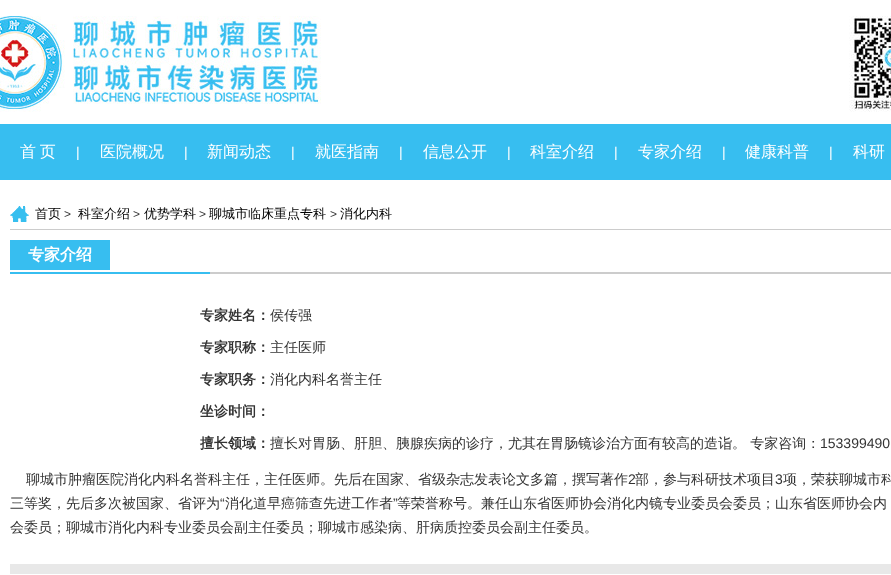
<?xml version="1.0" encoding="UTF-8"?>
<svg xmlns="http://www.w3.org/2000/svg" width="891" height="575">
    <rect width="100%" height="100%" fill="#FFFFFF"/>
    <image x="0" y="16" width="891" height="96" href="img_01.png"/>
    <rect x="0" y="124" width="891" height="56" fill="#37BEF0"/>
    <text x="20" y="157" word-spacing="-1" font-family="WenQuanYi Zen Hei" font-size="16" font-weight="500" fill="#FFFFFF">首 页</text>
    <text x="76" y="157" font-family="Liberation Sans" font-size="14" fill="#FFFFFF">|</text>
    <text x="100" y="157" font-family="WenQuanYi Zen Hei" font-size="16" font-weight="500" fill="#FFFFFF">医院概况</text>
    <text x="184" y="157" font-family="Liberation Sans" font-size="14" fill="#FFFFFF">|</text>
    <text x="207" y="157" font-family="WenQuanYi Zen Hei" font-size="16" font-weight="500" fill="#FFFFFF">新闻动态</text>
    <text x="291" y="157" font-family="Liberation Sans" font-size="14" fill="#FFFFFF">|</text>
    <text x="315" y="157" font-family="WenQuanYi Zen Hei" font-size="16" font-weight="500" fill="#FFFFFF">就医指南</text>
    <text x="399" y="157" font-family="Liberation Sans" font-size="14" fill="#FFFFFF">|</text>
    <text x="423" y="157" font-family="WenQuanYi Zen Hei" font-size="16" font-weight="500" fill="#FFFFFF">信息公开</text>
    <text x="507" y="157" font-family="Liberation Sans" font-size="14" fill="#FFFFFF">|</text>
    <text x="530" y="157" font-family="WenQuanYi Zen Hei" font-size="16" font-weight="500" fill="#FFFFFF">科室介绍</text>
    <text x="614" y="157" font-family="Liberation Sans" font-size="14" fill="#FFFFFF">|</text>
    <text x="638" y="157" font-family="WenQuanYi Zen Hei" font-size="16" font-weight="500" fill="#FFFFFF">专家介绍</text>
    <text x="722" y="157" font-family="Liberation Sans" font-size="14" fill="#FFFFFF">|</text>
    <text x="745" y="157" font-family="WenQuanYi Zen Hei" font-size="16" font-weight="500" fill="#FFFFFF">健康科普</text>
    <text x="829" y="157" font-family="Liberation Sans" font-size="14" fill="#FFFFFF">|</text>
    <text x="853" y="157" font-family="WenQuanYi Zen Hei" font-size="16" font-weight="500" fill="#FFFFFF">科研</text>
    <image x="10" y="206" width="19" height="16" href="img_02.png"/>
    <rect x="10" y="229" width="881" height="1" fill="#CCCCCC"/>
    <text x="35" y="218" font-family="WenQuanYi Zen Hei" font-size="13" font-weight="500" fill="#000000">首页</text>
    <text x="64" y="218" font-family="Liberation Sans" font-size="12" fill="#333333">&gt;</text>
    <text x="78" y="218" font-family="WenQuanYi Zen Hei" font-size="13" font-weight="500" fill="#000000">科室介绍</text>
    <text x="133" y="218" font-family="Liberation Sans" font-size="12" fill="#333333">&gt;</text>
    <text x="144" y="218" font-family="WenQuanYi Zen Hei" font-size="13" font-weight="500" fill="#000000">优势学科</text>
    <text x="199" y="218" font-family="Liberation Sans" font-size="12" fill="#333333">&gt;</text>
    <text x="209" y="218" font-family="WenQuanYi Zen Hei" font-size="13" font-weight="500" fill="#000000">聊城市临床重点专科</text>
    <text x="330" y="218" font-family="Liberation Sans" font-size="12" fill="#333333">&gt;</text>
    <text x="340" y="218" font-family="WenQuanYi Zen Hei" font-size="13" font-weight="500" fill="#000000">消化内科</text>
    <rect x="210" y="272" width="681" height="2" fill="#CCCCCC"/>
    <rect x="10" y="272" width="200" height="2" fill="#37BEF0"/>
    <rect x="10" y="240" width="100" height="30" fill="#37BEF0"/>
    <text x="28" y="260" font-family="WenQuanYi Zen Hei" font-size="16" font-weight="700" fill="#FFFFFF">专家介绍</text>
    <text x="200" y="320" font-family="WenQuanYi Zen Hei" font-size="14" font-weight="700" fill="#333333">专家姓名：</text>
    <text x="270" y="320" font-family="WenQuanYi Zen Hei" font-size="14" font-weight="500" fill="#333333">侯传强</text>
    <text x="200" y="352" font-family="WenQuanYi Zen Hei" font-size="14" font-weight="700" fill="#333333">专家职称：</text>
    <text x="270" y="352" font-family="WenQuanYi Zen Hei" font-size="14" font-weight="500" fill="#333333">主任医师</text>
    <text x="200" y="384" font-family="WenQuanYi Zen Hei" font-size="14" font-weight="700" fill="#333333">专家职务：</text>
    <text x="270" y="384" font-family="WenQuanYi Zen Hei" font-size="14" font-weight="500" fill="#333333">消化内科名誉主任</text>
    <text x="200" y="416" font-family="WenQuanYi Zen Hei" font-size="14" font-weight="700" fill="#333333">坐诊时间：</text>
    <text x="200" y="448" font-family="WenQuanYi Zen Hei" font-size="14" font-weight="700" fill="#333333">擅长领域：</text>
    <text x="270" y="448" font-family="WenQuanYi Zen Hei" font-size="14" font-weight="500" fill="#333333">擅长对胃肠、肝胆、胰腺疾病的诊疗，尤其在胃肠镜诊治方面有较高的造诣。 专家咨询：</text>
    <text x="820" y="448" font-family="Liberation Sans" font-size="14" fill="#333333">153399490</text>
    <text x="26" y="484" font-family="WenQuanYi Zen Hei" font-size="14" font-weight="500" fill="#333333">聊城市肿瘤医院消化内科名誉科主任，主任医师。先后在国家、省级杂志发表论文多篇，撰写著作</text>
    <text x="628" y="484" font-family="Liberation Sans" font-size="14" fill="#333333">2</text>
    <text x="635" y="484" font-family="WenQuanYi Zen Hei" font-size="14" font-weight="500" fill="#333333">部，参与科研技术项目</text>
    <text x="775" y="484" font-family="Liberation Sans" font-size="14" fill="#333333">3</text>
    <text x="783" y="484" font-family="WenQuanYi Zen Hei" font-size="14" font-weight="500" fill="#333333">项，荣获聊城市科</text>
    <text x="10" y="508" font-family="WenQuanYi Zen Hei" font-size="14" font-weight="500" fill="#333333">三等奖，先后多次被国家、省评为</text>
    <text x="220" y="508" font-family="Liberation Sans" font-size="14" fill="#333333">“</text>
    <text x="225" y="508" font-family="WenQuanYi Zen Hei" font-size="14" font-weight="500" fill="#333333">消化道早癌筛查先进工作者</text>
    <text x="393" y="508" font-family="Liberation Sans" font-size="14" fill="#333333">”</text>
    <text x="397" y="508" font-family="WenQuanYi Zen Hei" font-size="14" font-weight="500" fill="#333333">等荣誉称号。兼任山东省医师协会消化内镜专业委员会委员；山东省医师协会内</text>
    <text x="10" y="532" font-family="WenQuanYi Zen Hei" font-size="14" font-weight="500" fill="#333333">会委员；聊城市消化内科专业委员会副主任委员；聊城市感染病、肝病质控委员会副主任委员。</text>
    <rect x="10" y="564" width="881" height="10" fill="#E8E8E8"/>
</svg>
